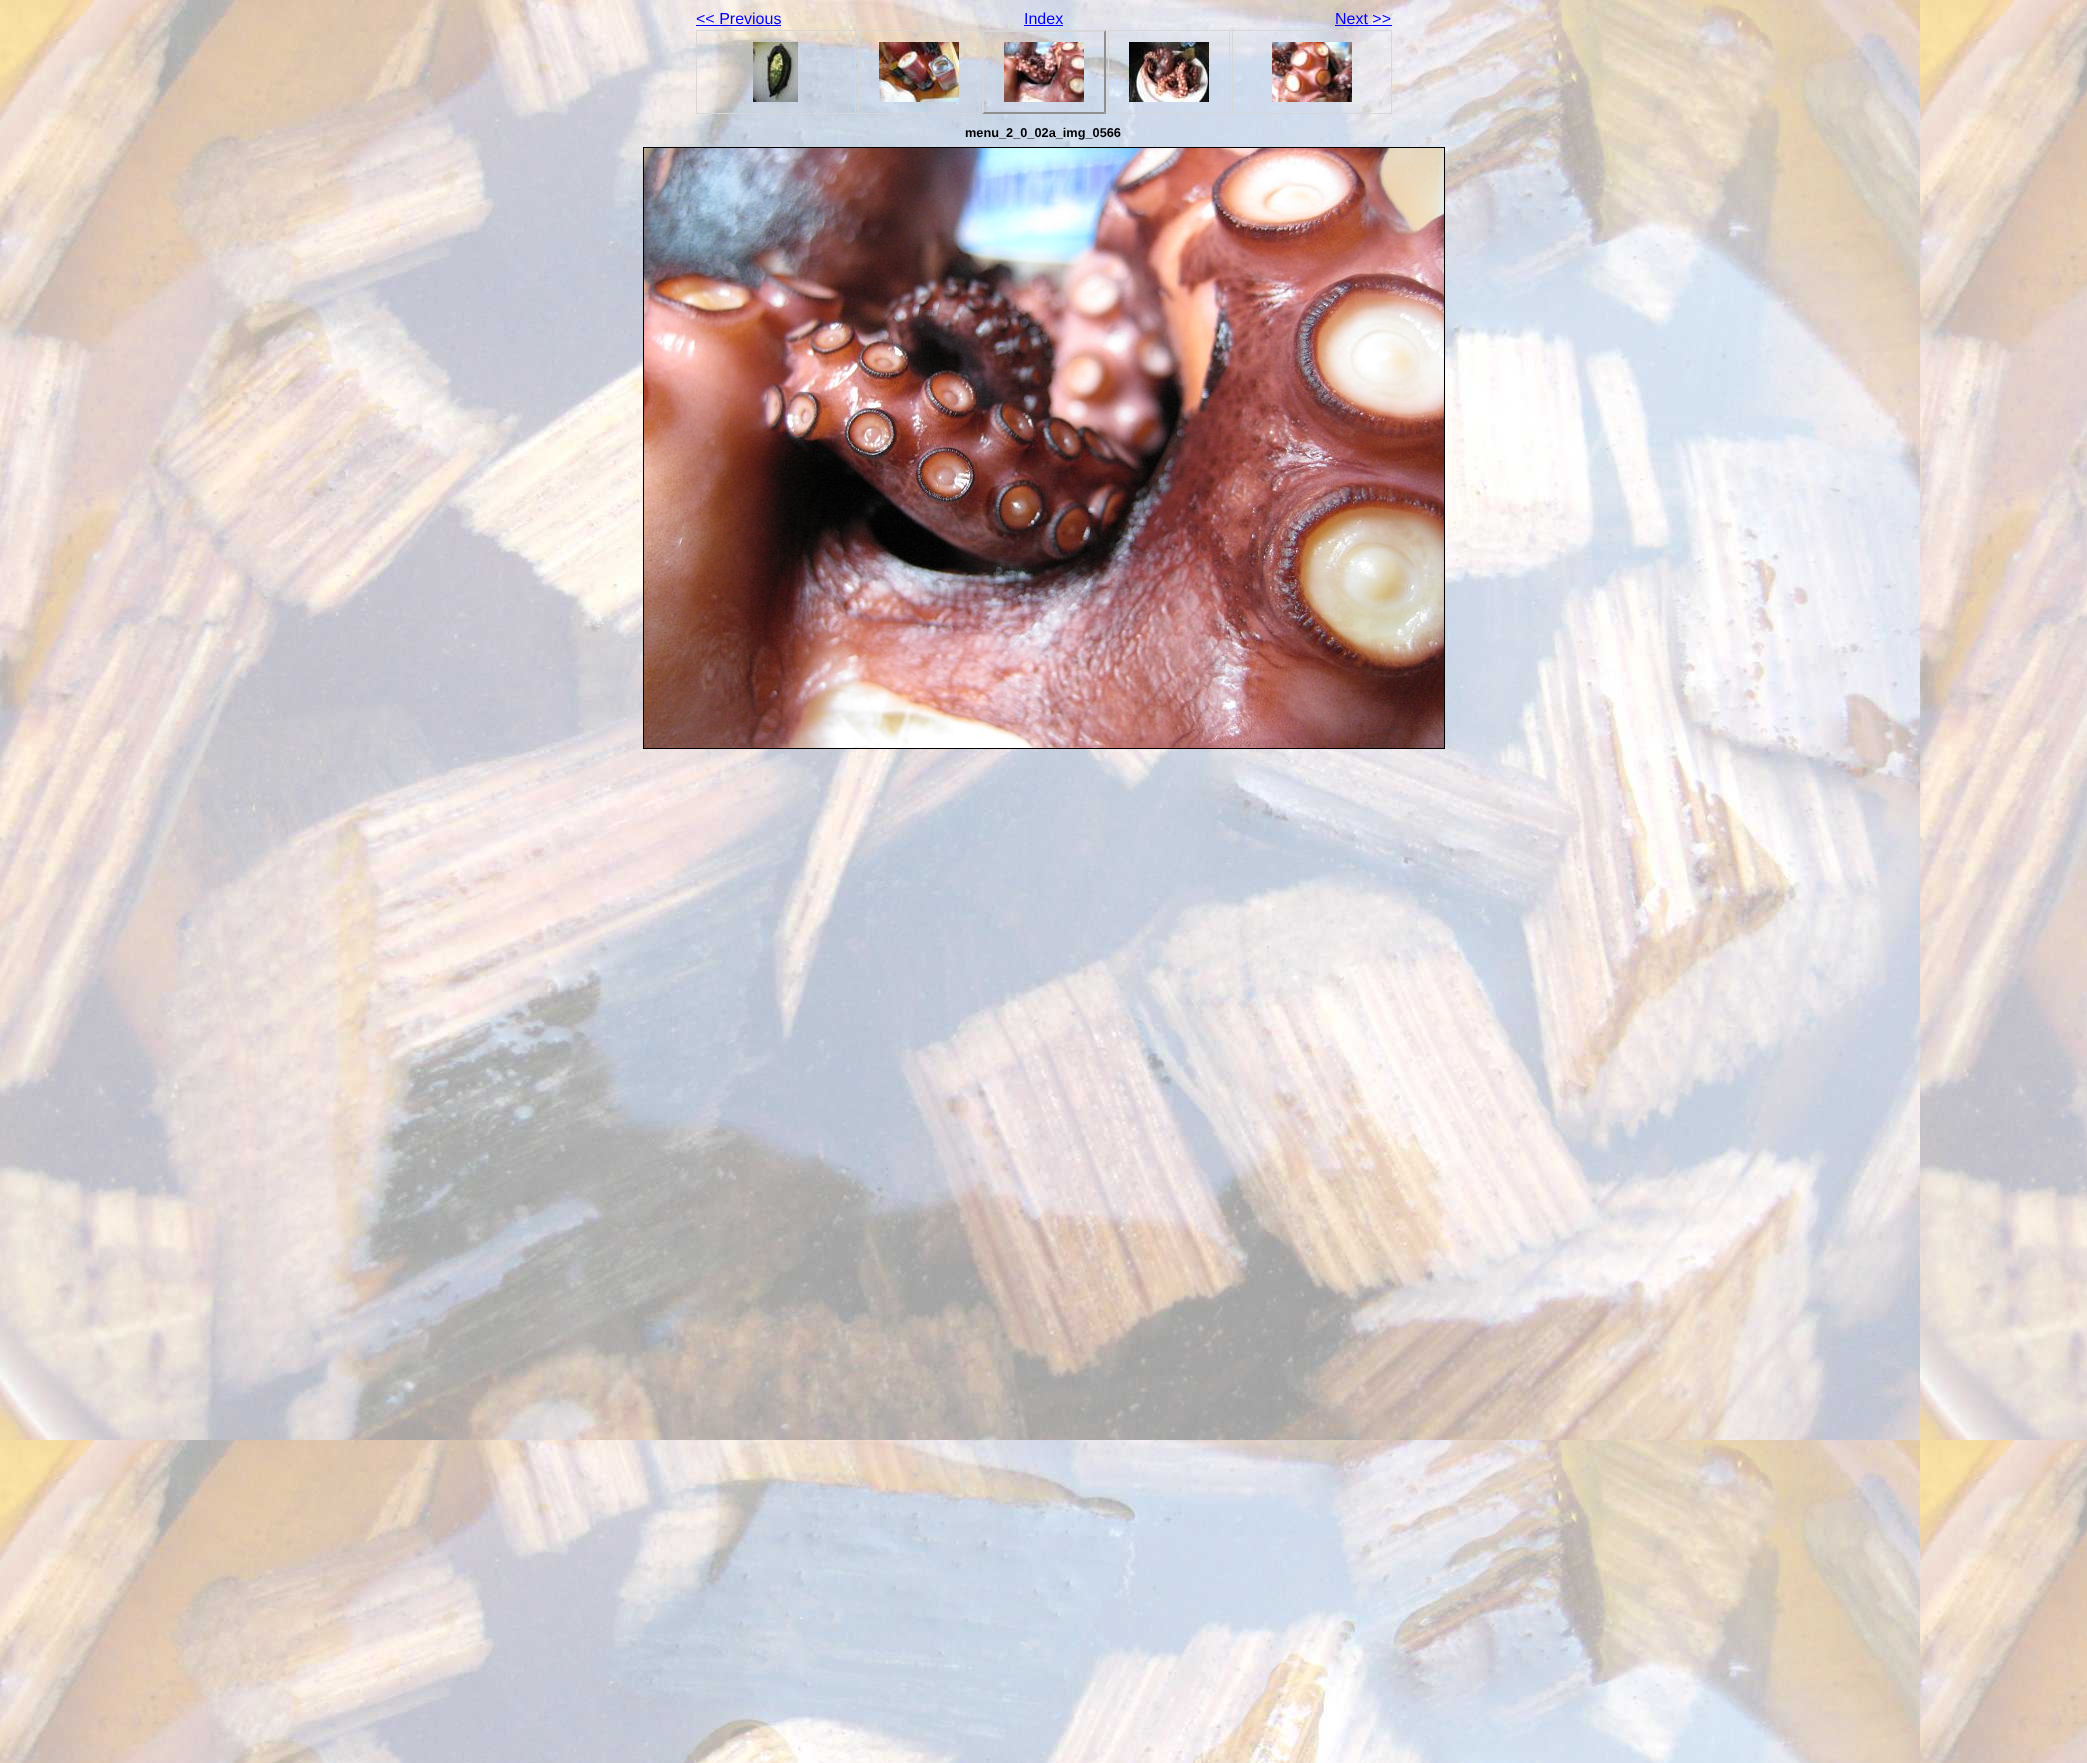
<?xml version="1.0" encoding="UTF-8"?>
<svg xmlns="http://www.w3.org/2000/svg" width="2087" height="1763">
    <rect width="100%" height="100%" fill="#FFFFFF"/>
    <image x="0" y="0" width="2087" height="1763" href="img_01.png"/>
    <text x="696" y="24" font-family="Liberation Sans" font-size="16" fill="#0000FF">&lt;&lt; Previous</text>
    <rect x="696" y="25" width="85" height="1" fill="#0000FF"/>
    <text x="1024" y="24" font-family="Liberation Sans" font-size="16" fill="#0000FF">Index</text>
    <rect x="1024" y="25" width="39" height="1" fill="#0000FF"/>
    <text x="1335" y="24" font-family="Liberation Sans" font-size="16" fill="#0000FF">Next &gt;&gt;</text>
    <rect x="1335" y="25" width="57" height="1" fill="#0000FF"/>
    <rect x="696.5" y="30.5" width="159" height="83" fill="none" stroke="#D7D7D7"/>
    <image x="753" y="42" width="45" height="60" href="img_02.png"/>
    <rect x="858.5" y="30.5" width="121" height="83" fill="none" stroke="#D7D7D7"/>
    <image x="879" y="42" width="80" height="60" href="img_03.png"/>
    <path d="M 982 30 H 1106 L 1104 32 H 984 Z" fill="#D7D7D7"/>
    <path d="M 1106 30 V 114 L 1104 112 V 32 Z" fill="#8F8F8F"/>
    <path d="M 1106 114 H 982 L 984 112 H 1104 Z" fill="#8F8F8F"/>
    <path d="M 982 114 V 30 L 984 32 V 112 Z" fill="#D7D7D7"/>
    <image x="1004" y="42" width="80" height="60" href="img_04.png"/>
    <rect x="1108.5" y="30.5" width="121" height="83" fill="none" stroke="#D7D7D7"/>
    <image x="1129" y="42" width="80" height="60" href="img_05.png"/>
    <rect x="1232.5" y="30.5" width="159" height="83" fill="none" stroke="#D7D7D7"/>
    <image x="1272" y="42" width="80" height="60" href="img_06.png"/>
    <text x="965" y="137" font-family="Liberation Sans" font-size="12.75" font-weight="700" fill="#000000">menu_2_0_02a_img_0566</text>
    <rect x="643.5" y="147.5" width="801" height="601" fill="none" stroke="#000000"/>
    <image x="644" y="148" width="800" height="600" href="img_07.png"/>
</svg>
